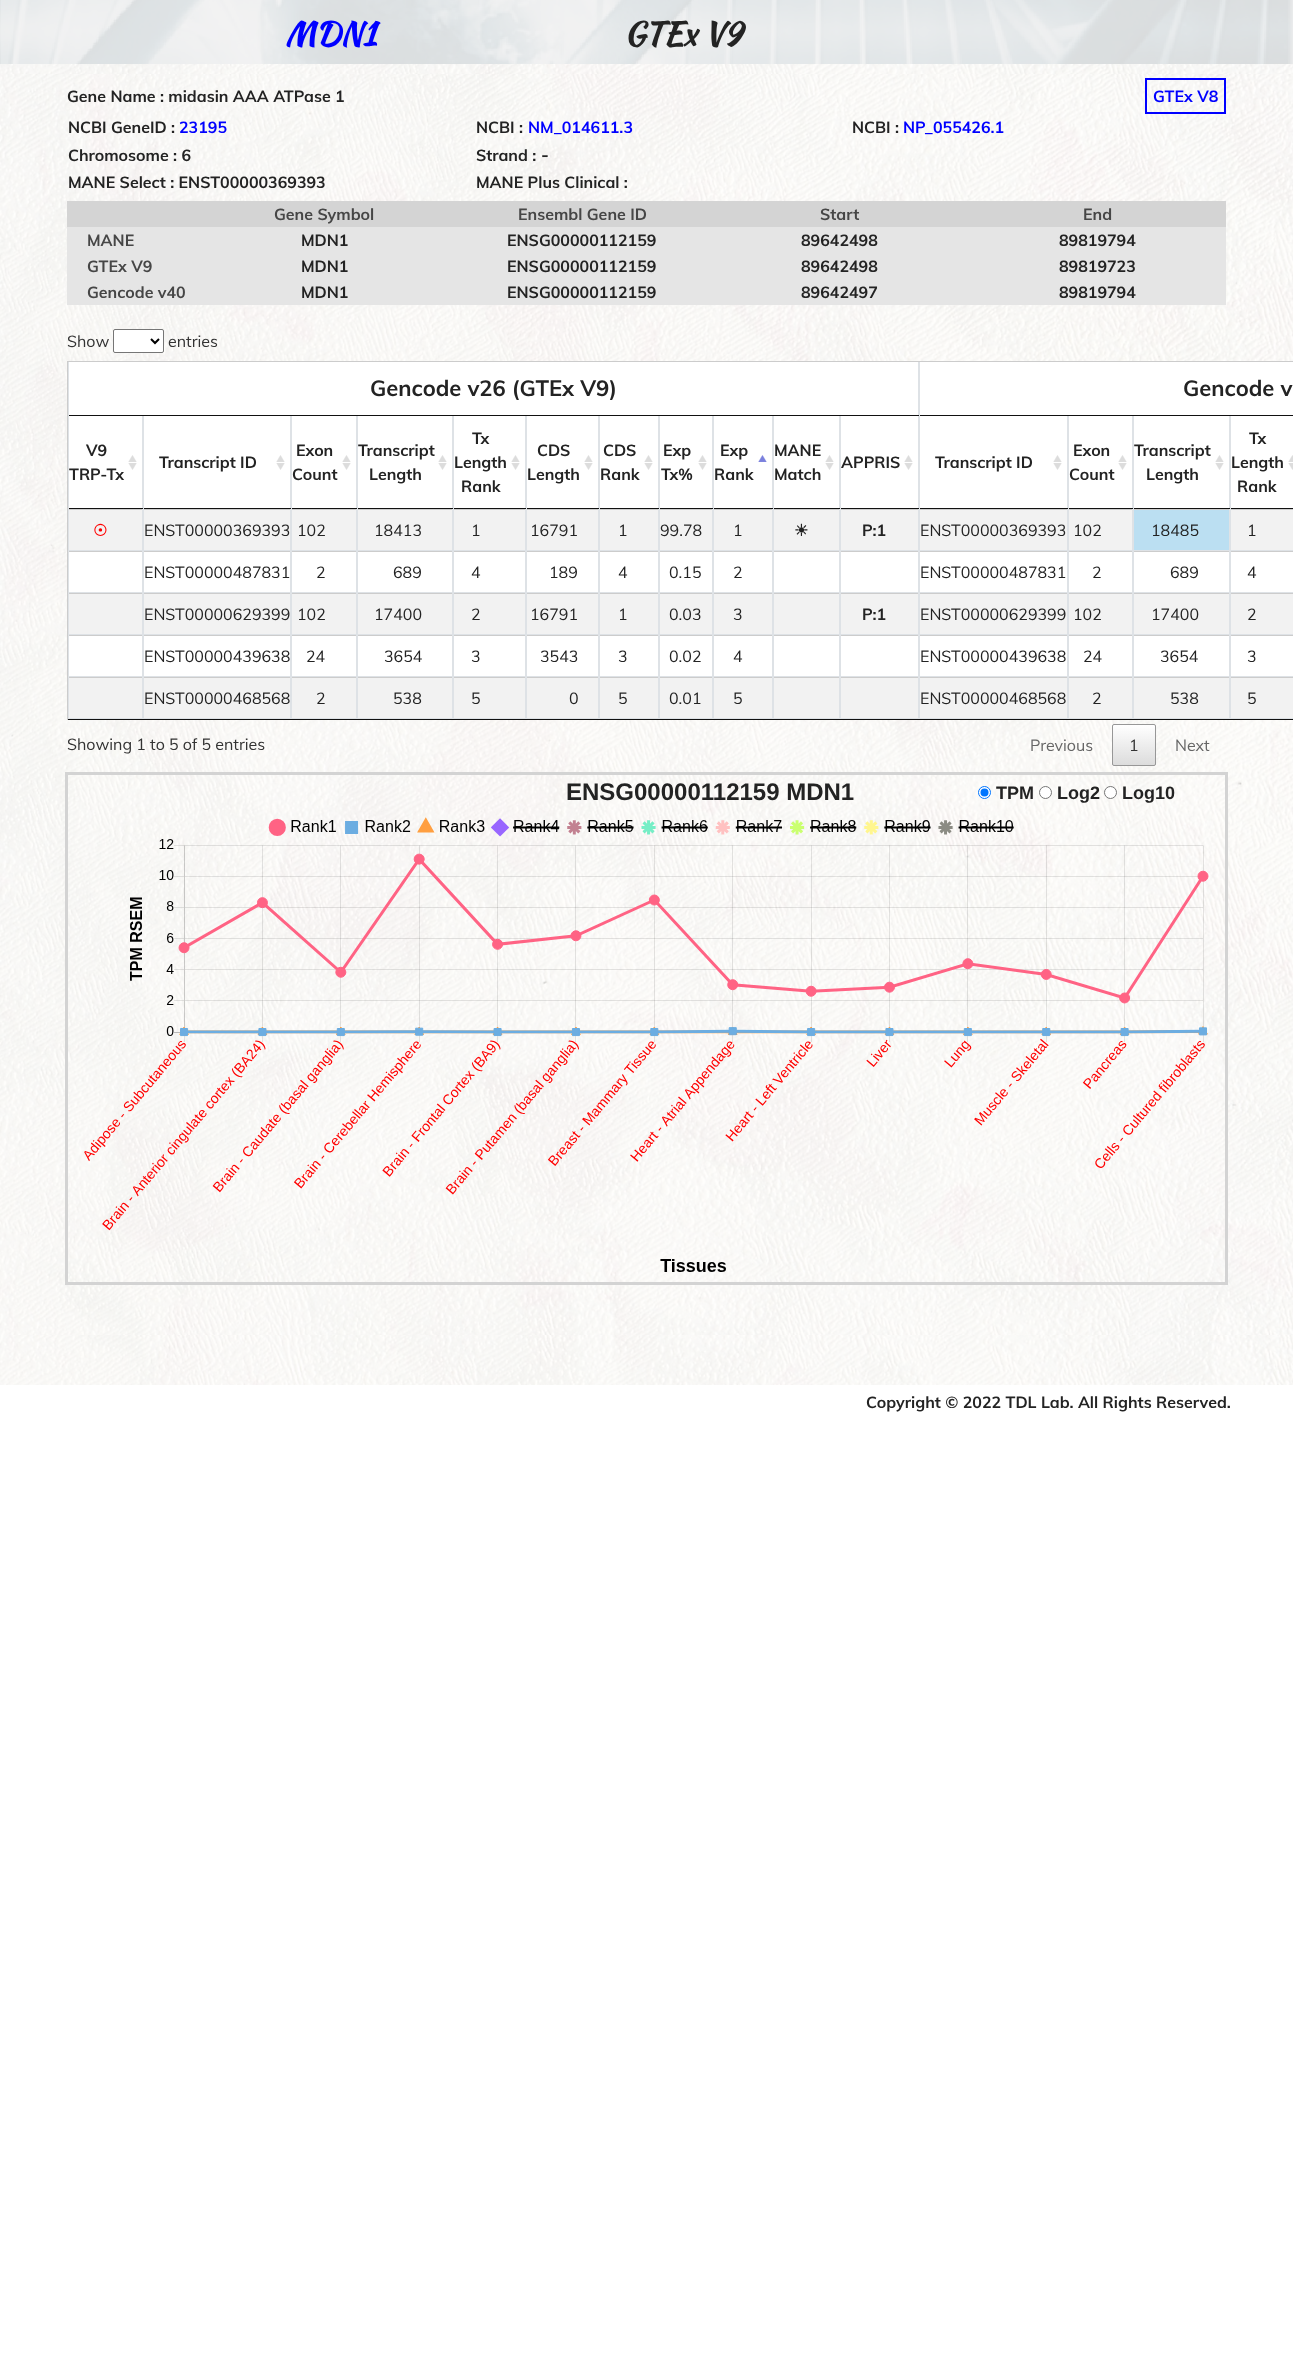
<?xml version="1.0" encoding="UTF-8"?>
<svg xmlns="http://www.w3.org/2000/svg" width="1293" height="2377">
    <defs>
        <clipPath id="clip1"><rect x="1112" y="724" width="44" height="42" rx="2"/></clipPath>
        <linearGradient id="g1" gradientUnits="userSpaceOnUse" x1="1134" y1="725" x2="1134" y2="765"><stop offset="0" stop-color="#FFFFFF"/><stop offset="1" stop-color="#DCDCDC"/></linearGradient>
    </defs>
    <rect width="100%" height="100%" fill="#FFFFFF"/>
    <image x="0" y="0" width="1293" height="64" href="img_01.png"/>
    <text x="285" y="45" font-family="Kaushan Script" font-size="32" font-weight="700" fill="#0000FF">MDN1</text>
    <text x="624" y="45" font-family="Kaushan Script" font-size="32" font-weight="700" fill="#232323">GTEx V9</text>
    <image x="0" y="64" width="1293" height="1321" href="img_02.png"/>
    <image x="0" y="74" width="1293" height="1261" href="img_03.png"/>
    <text x="67" y="102" font-family="Muli" font-size="16" font-weight="700" fill="#232323">Gene Name : midasin AAA ATPase 1</text>
    <rect x="1146" y="79" width="79" height="34" fill="none" stroke="#0000FF" stroke-width="2"/>
    <text x="1153" y="102" font-family="Muli" font-size="16" font-weight="700" fill="#0000FF">GTEx V8</text>
    <text x="68" y="133" font-family="Muli" font-size="16" font-weight="700" fill="#232323">NCBI GeneID :</text>
    <text x="179" y="133" font-family="Muli" font-size="16" font-weight="700" fill="#0000FF">23195</text>
    <text x="476" y="133" font-family="Muli" font-size="16" font-weight="700" fill="#232323">NCBI :</text>
    <text x="528" y="133" font-family="Muli" font-size="16" font-weight="700" fill="#0000FF">NM_014611.3</text>
    <text x="852" y="133" font-family="Muli" font-size="16" font-weight="700" fill="#232323">NCBI :</text>
    <text x="903" y="133" font-family="Muli" font-size="16" font-weight="700" fill="#0000FF">NP_055426.1</text>
    <text x="68" y="161" font-family="Muli" font-size="16" font-weight="700" fill="#232323">Chromosome : 6</text>
    <text x="476" y="161" font-family="Muli" font-size="16" font-weight="700" fill="#232323">Strand :</text>
    <text x="541" y="161" font-family="Muli" font-size="18" font-weight="700" fill="#232323">-</text>
    <text x="68" y="188" font-family="Muli" font-size="16" font-weight="700" fill="#232323">MANE Select : ENST00000369393</text>
    <text x="476" y="188" font-family="Muli" font-size="16" font-weight="700" fill="#232323">MANE Plus Clinical :</text>
    <rect x="67" y="227" width="1159" height="78" fill="#E5E5E5"/>
    <rect x="67" y="201" width="1159" height="26" fill="#D4D4D4"/>
    <text x="274" y="220" font-family="Muli" font-size="16" font-weight="700" fill="#464646">Gene Symbol</text>
    <text x="518" y="220" font-family="Muli" font-size="16" font-weight="700" fill="#464646">Ensembl Gene ID</text>
    <text x="820" y="220" font-family="Muli" font-size="16" font-weight="700" fill="#464646">Start</text>
    <text x="1083" y="220" font-family="Muli" font-size="16" font-weight="700" fill="#464646">End</text>
    <text x="87" y="246" font-family="Muli" font-size="16" font-weight="700" fill="#464646">MANE</text>
    <text x="301" y="246" font-family="Muli" font-size="16" font-weight="700" fill="#232323">MDN1</text>
    <text x="507" y="246" font-family="Muli" font-size="16" font-weight="700" fill="#232323">ENSG00000112159</text>
    <text x="801" y="246" font-family="Muli" font-size="16" font-weight="700" fill="#232323">89642498</text>
    <text x="1059" y="246" font-family="Muli" font-size="16" font-weight="700" fill="#232323">89819794</text>
    <text x="87" y="272" font-family="Muli" font-size="16" font-weight="700" fill="#464646">GTEx V9</text>
    <text x="301" y="272" font-family="Muli" font-size="16" font-weight="700" fill="#232323">MDN1</text>
    <text x="507" y="272" font-family="Muli" font-size="16" font-weight="700" fill="#232323">ENSG00000112159</text>
    <text x="801" y="272" font-family="Muli" font-size="16" font-weight="700" fill="#232323">89642498</text>
    <text x="1059" y="272" font-family="Muli" font-size="16" font-weight="700" fill="#232323">89819723</text>
    <text x="87" y="298" font-family="Muli" font-size="16" font-weight="700" fill="#464646">Gencode v40</text>
    <text x="301" y="298" font-family="Muli" font-size="16" font-weight="700" fill="#232323">MDN1</text>
    <text x="507" y="298" font-family="Muli" font-size="16" font-weight="700" fill="#232323">ENSG00000112159</text>
    <text x="801" y="298" font-family="Muli" font-size="16" font-weight="700" fill="#232323">89642497</text>
    <text x="1059" y="298" font-family="Muli" font-size="16" font-weight="700" fill="#232323">89819794</text>
    <text x="67" y="347" font-family="Muli" font-size="16" fill="#333333">Show</text>
    <rect x="113.5" y="329.5" width="50" height="23" rx="1.5" fill="#FFFFFF" stroke="#767676"/>
    <path d="M 151 339 L 155 343 L 159 339" fill="none" stroke="#000000" stroke-width="2"/>
    <text x="168" y="347" font-family="Muli" font-size="16" fill="#333333">entries</text>
    <rect x="69" y="362" width="1224" height="314" fill="#FFFFFF"/>
    <rect x="67" y="361" width="1226" height="1" fill="#CCCCCC"/>
    <rect x="67" y="719" width="1226" height="1" fill="#111111"/>
    <rect x="67" y="361" width="1" height="359" fill="#CCCCCC"/>
    <rect x="918" y="362" width="1" height="147" fill="#DEE2E6"/>
    <rect x="68" y="415" width="1225" height="1" fill="#111111"/>
    <rect x="68" y="362" width="1" height="54" fill="#DEE2E6"/>
    <text x="370" y="396" font-family="Muli" font-size="22" font-weight="700" fill="#232323">Gencode v26 (GTEx V9)</text>
    <rect x="919" y="362" width="1" height="54" fill="#DEE2E6"/>
    <text x="1183" y="396" font-family="Muli" font-size="22" font-weight="700" fill="#232323">Gencode v</text>
    <image x="128" y="455" width="9" height="15" href="img_04.png"/>
    <rect x="142" y="416" width="1" height="93" fill="#DEE2E6"/>
    <rect x="68" y="508" width="75" height="1" fill="#111111"/>
    <rect x="68" y="416" width="1" height="93" fill="#DEE2E6"/>
    <text x="86" y="456" font-family="Muli" font-size="16" font-weight="700" fill="#232323">V9</text>
    <text x="69" y="480" font-family="Muli" font-size="16" font-weight="700" fill="#232323">TRP-Tx</text>
    <image x="276" y="455" width="9" height="15" href="img_04.png"/>
    <rect x="290" y="416" width="1" height="93" fill="#DEE2E6"/>
    <rect x="143" y="508" width="148" height="1" fill="#111111"/>
    <rect x="143" y="416" width="1" height="93" fill="#DEE2E6"/>
    <text x="159" y="468" font-family="Muli" font-size="16" font-weight="700" fill="#232323">Transcript ID</text>
    <image x="342" y="455" width="9" height="15" href="img_04.png"/>
    <rect x="356" y="416" width="1" height="93" fill="#DEE2E6"/>
    <rect x="291" y="508" width="66" height="1" fill="#111111"/>
    <rect x="291" y="416" width="1" height="93" fill="#DEE2E6"/>
    <text x="296" y="456" font-family="Muli" font-size="16" font-weight="700" fill="#232323">Exon</text>
    <text x="292" y="480" font-family="Muli" font-size="16" font-weight="700" fill="#232323">Count</text>
    <image x="438" y="455" width="9" height="15" href="img_04.png"/>
    <rect x="452" y="416" width="1" height="93" fill="#DEE2E6"/>
    <rect x="357" y="508" width="96" height="1" fill="#111111"/>
    <rect x="357" y="416" width="1" height="93" fill="#DEE2E6"/>
    <text x="358" y="456" font-family="Muli" font-size="16" font-weight="700" fill="#232323">Transcript</text>
    <text x="369" y="480" font-family="Muli" font-size="16" font-weight="700" fill="#232323">Length</text>
    <image x="511" y="455" width="9" height="15" href="img_04.png"/>
    <rect x="525" y="416" width="1" height="93" fill="#DEE2E6"/>
    <rect x="453" y="508" width="73" height="1" fill="#111111"/>
    <rect x="453" y="416" width="1" height="93" fill="#DEE2E6"/>
    <text x="472" y="444" font-family="Muli" font-size="16" font-weight="700" fill="#232323">Tx</text>
    <text x="454" y="468" font-family="Muli" font-size="16" font-weight="700" fill="#232323">Length</text>
    <text x="461" y="492" font-family="Muli" font-size="16" font-weight="700" fill="#232323">Rank</text>
    <image x="584" y="455" width="9" height="15" href="img_04.png"/>
    <rect x="598" y="416" width="1" height="93" fill="#DEE2E6"/>
    <rect x="526" y="508" width="73" height="1" fill="#111111"/>
    <rect x="526" y="416" width="1" height="93" fill="#DEE2E6"/>
    <text x="537" y="456" font-family="Muli" font-size="16" font-weight="700" fill="#232323">CDS</text>
    <text x="527" y="480" font-family="Muli" font-size="16" font-weight="700" fill="#232323">Length</text>
    <image x="644" y="455" width="9" height="15" href="img_04.png"/>
    <rect x="658" y="416" width="1" height="93" fill="#DEE2E6"/>
    <rect x="599" y="508" width="60" height="1" fill="#111111"/>
    <rect x="599" y="416" width="1" height="93" fill="#DEE2E6"/>
    <text x="603" y="456" font-family="Muli" font-size="16" font-weight="700" fill="#232323">CDS</text>
    <text x="600" y="480" font-family="Muli" font-size="16" font-weight="700" fill="#232323">Rank</text>
    <image x="698" y="455" width="9" height="15" href="img_04.png"/>
    <rect x="712" y="416" width="1" height="93" fill="#DEE2E6"/>
    <rect x="659" y="508" width="54" height="1" fill="#111111"/>
    <rect x="659" y="416" width="1" height="93" fill="#DEE2E6"/>
    <text x="663" y="456" font-family="Muli" font-size="16" font-weight="700" fill="#232323">Exp</text>
    <text x="661" y="480" font-family="Muli" font-size="16" font-weight="700" fill="#232323">Tx%</text>
    <image x="758" y="455" width="9" height="7" href="img_05.png"/>
    <rect x="772" y="416" width="1" height="93" fill="#DEE2E6"/>
    <rect x="713" y="508" width="60" height="1" fill="#111111"/>
    <rect x="713" y="416" width="1" height="93" fill="#DEE2E6"/>
    <text x="720" y="456" font-family="Muli" font-size="16" font-weight="700" fill="#232323">Exp</text>
    <text x="714" y="480" font-family="Muli" font-size="16" font-weight="700" fill="#232323">Rank</text>
    <image x="825" y="455" width="9" height="15" href="img_04.png"/>
    <rect x="839" y="416" width="1" height="93" fill="#DEE2E6"/>
    <rect x="773" y="508" width="146" height="1" fill="#111111"/>
    <rect x="773" y="416" width="1" height="93" fill="#DEE2E6"/>
    <text font-family="Muli" font-size="16" font-weight="700" fill="#232323">
        <tspan x="774" y="456">MANE</tspan>
        <tspan x="774" y="480">Match</tspan>
    </text>
    <image x="904" y="455" width="9" height="15" href="img_04.png"/>
    <rect x="840" y="416" width="1" height="93" fill="#DEE2E6"/>
    <text x="841" y="468" font-family="Muli" font-size="16" font-weight="700" fill="#232323">APPRIS</text>
    <image x="1053" y="455" width="9" height="15" href="img_04.png"/>
    <rect x="1067" y="416" width="1" height="93" fill="#DEE2E6"/>
    <rect x="919" y="508" width="149" height="1" fill="#111111"/>
    <rect x="919" y="416" width="1" height="93" fill="#DEE2E6"/>
    <text x="935" y="468" font-family="Muli" font-size="16" font-weight="700" fill="#232323">Transcript ID</text>
    <image x="1118" y="455" width="9" height="15" href="img_04.png"/>
    <rect x="1132" y="416" width="1" height="93" fill="#DEE2E6"/>
    <rect x="1068" y="508" width="65" height="1" fill="#111111"/>
    <rect x="1068" y="416" width="1" height="93" fill="#DEE2E6"/>
    <text x="1073" y="456" font-family="Muli" font-size="16" font-weight="700" fill="#232323">Exon</text>
    <text x="1069" y="480" font-family="Muli" font-size="16" font-weight="700" fill="#232323">Count</text>
    <image x="1215" y="455" width="9" height="15" href="img_04.png"/>
    <rect x="1229" y="416" width="1" height="93" fill="#DEE2E6"/>
    <rect x="1133" y="508" width="160" height="1" fill="#111111"/>
    <rect x="1133" y="416" width="1" height="93" fill="#DEE2E6"/>
    <text x="1134" y="456" font-family="Muli" font-size="16" font-weight="700" fill="#232323">Transcript</text>
    <text x="1146" y="480" font-family="Muli" font-size="16" font-weight="700" fill="#232323">Length</text>
    <image x="1288" y="455" width="5" height="15" href="img_06.png"/>
    <rect x="1230" y="416" width="1" height="93" fill="#DEE2E6"/>
    <text x="1249" y="444" font-family="Muli" font-size="16" font-weight="700" fill="#232323">Tx</text>
    <text x="1231" y="468" font-family="Muli" font-size="16" font-weight="700" fill="#232323">Length</text>
    <text x="1237" y="492" font-family="Muli" font-size="16" font-weight="700" fill="#232323">Rank</text>
    <rect x="69" y="510" width="1224" height="40" fill="#F2F2F2"/>
    <rect x="68" y="509" width="1225" height="1" fill="#CCCCCC"/>
    <rect x="142" y="509" width="1" height="42" fill="#DEE2E6"/>
    <rect x="68" y="550" width="75" height="1" fill="#DEE2E6"/>
    <rect x="68" y="509" width="1" height="42" fill="#DEE2E6"/>
    <text x="93" y="536" font-family="DejaVu Sans" font-size="16" font-weight="700" fill="#FF0000">☉</text>
    <rect x="290" y="509" width="1" height="42" fill="#DEE2E6"/>
    <rect x="143" y="550" width="148" height="1" fill="#DEE2E6"/>
    <rect x="143" y="509" width="1" height="42" fill="#DEE2E6"/>
    <text x="144" y="536" font-family="Muli" font-size="16" fill="#232323">ENST00000369393</text>
    <rect x="356" y="509" width="1" height="42" fill="#DEE2E6"/>
    <rect x="291" y="550" width="66" height="1" fill="#DEE2E6"/>
    <rect x="291" y="509" width="1" height="42" fill="#DEE2E6"/>
    <text x="297" y="536" font-family="Muli" font-size="16" fill="#232323">102</text>
    <rect x="452" y="509" width="1" height="42" fill="#DEE2E6"/>
    <rect x="357" y="550" width="96" height="1" fill="#DEE2E6"/>
    <rect x="357" y="509" width="1" height="42" fill="#DEE2E6"/>
    <text x="374" y="536" font-family="Muli" font-size="16" fill="#232323">18413</text>
    <rect x="525" y="509" width="1" height="42" fill="#DEE2E6"/>
    <rect x="453" y="550" width="73" height="1" fill="#DEE2E6"/>
    <rect x="453" y="509" width="1" height="42" fill="#DEE2E6"/>
    <text x="471" y="536" font-family="Muli" font-size="16" fill="#232323">1</text>
    <rect x="598" y="509" width="1" height="42" fill="#DEE2E6"/>
    <rect x="526" y="550" width="73" height="1" fill="#DEE2E6"/>
    <rect x="526" y="509" width="1" height="42" fill="#DEE2E6"/>
    <text x="530" y="536" font-family="Muli" font-size="16" fill="#232323">16791</text>
    <rect x="658" y="509" width="1" height="42" fill="#DEE2E6"/>
    <rect x="599" y="550" width="60" height="1" fill="#DEE2E6"/>
    <rect x="599" y="509" width="1" height="42" fill="#DEE2E6"/>
    <text x="618" y="536" font-family="Muli" font-size="16" fill="#232323">1</text>
    <rect x="712" y="509" width="1" height="42" fill="#DEE2E6"/>
    <rect x="659" y="550" width="54" height="1" fill="#DEE2E6"/>
    <rect x="659" y="509" width="1" height="42" fill="#DEE2E6"/>
    <text x="660" y="536" font-family="Muli" font-size="16" fill="#232323">99.78</text>
    <rect x="772" y="509" width="1" height="42" fill="#DEE2E6"/>
    <rect x="713" y="550" width="60" height="1" fill="#DEE2E6"/>
    <rect x="713" y="509" width="1" height="42" fill="#DEE2E6"/>
    <text x="733" y="536" font-family="Muli" font-size="16" fill="#232323">1</text>
    <rect x="839" y="509" width="1" height="42" fill="#DEE2E6"/>
    <rect x="773" y="550" width="67" height="1" fill="#DEE2E6"/>
    <rect x="773" y="509" width="1" height="42" fill="#DEE2E6"/>
    <text x="794" y="536" font-family="DejaVu Sans" font-size="16" font-weight="700" fill="#232323">☀</text>
    <rect x="918" y="509" width="1" height="42" fill="#DEE2E6"/>
    <rect x="840" y="550" width="79" height="1" fill="#DEE2E6"/>
    <rect x="840" y="509" width="1" height="42" fill="#DEE2E6"/>
    <text x="862" y="536" font-family="Muli" font-size="16" font-weight="700" fill="#232323">P:1</text>
    <rect x="1067" y="509" width="1" height="42" fill="#DEE2E6"/>
    <rect x="919" y="550" width="149" height="1" fill="#DEE2E6"/>
    <rect x="919" y="509" width="1" height="42" fill="#DEE2E6"/>
    <text x="920" y="536" font-family="Muli" font-size="16" fill="#232323">ENST00000369393</text>
    <rect x="1132" y="509" width="1" height="42" fill="#DEE2E6"/>
    <rect x="1068" y="550" width="65" height="1" fill="#DEE2E6"/>
    <rect x="1068" y="509" width="1" height="42" fill="#DEE2E6"/>
    <text x="1073" y="536" font-family="Muli" font-size="16" fill="#232323">102</text>
    <rect x="1134" y="510" width="95" height="40" fill="#BBDFF2"/>
    <rect x="1229" y="509" width="1" height="42" fill="#DEE2E6"/>
    <rect x="1133" y="550" width="160" height="1" fill="#DEE2E6"/>
    <rect x="1133" y="509" width="1" height="42" fill="#DEE2E6"/>
    <text x="1151" y="536" font-family="Muli" font-size="16" fill="#232323">18485</text>
    <rect x="1230" y="509" width="1" height="42" fill="#DEE2E6"/>
    <text x="1247" y="536" font-family="Muli" font-size="16" fill="#232323">1</text>
    <rect x="68" y="551" width="1225" height="1" fill="#CCCCCC"/>
    <rect x="142" y="551" width="1" height="42" fill="#DEE2E6"/>
    <rect x="68" y="592" width="75" height="1" fill="#DEE2E6"/>
    <rect x="68" y="551" width="1" height="42" fill="#DEE2E6"/>
    <rect x="290" y="551" width="1" height="42" fill="#DEE2E6"/>
    <rect x="143" y="592" width="148" height="1" fill="#DEE2E6"/>
    <rect x="143" y="551" width="1" height="42" fill="#DEE2E6"/>
    <text x="144" y="578" font-family="Muli" font-size="16" fill="#232323">ENST00000487831</text>
    <rect x="356" y="551" width="1" height="42" fill="#DEE2E6"/>
    <rect x="291" y="592" width="66" height="1" fill="#DEE2E6"/>
    <rect x="291" y="551" width="1" height="42" fill="#DEE2E6"/>
    <text x="316" y="578" font-family="Muli" font-size="16" fill="#232323">2</text>
    <rect x="452" y="551" width="1" height="42" fill="#DEE2E6"/>
    <rect x="357" y="592" width="96" height="1" fill="#DEE2E6"/>
    <rect x="357" y="551" width="1" height="42" fill="#DEE2E6"/>
    <text x="393" y="578" font-family="Muli" font-size="16" fill="#232323">689</text>
    <rect x="525" y="551" width="1" height="42" fill="#DEE2E6"/>
    <rect x="453" y="592" width="73" height="1" fill="#DEE2E6"/>
    <rect x="453" y="551" width="1" height="42" fill="#DEE2E6"/>
    <text x="471" y="578" font-family="Muli" font-size="16" fill="#232323">4</text>
    <rect x="598" y="551" width="1" height="42" fill="#DEE2E6"/>
    <rect x="526" y="592" width="73" height="1" fill="#DEE2E6"/>
    <rect x="526" y="551" width="1" height="42" fill="#DEE2E6"/>
    <text x="549" y="578" font-family="Muli" font-size="16" fill="#232323">189</text>
    <rect x="658" y="551" width="1" height="42" fill="#DEE2E6"/>
    <rect x="599" y="592" width="60" height="1" fill="#DEE2E6"/>
    <rect x="599" y="551" width="1" height="42" fill="#DEE2E6"/>
    <text x="618" y="578" font-family="Muli" font-size="16" fill="#232323">4</text>
    <rect x="712" y="551" width="1" height="42" fill="#DEE2E6"/>
    <rect x="659" y="592" width="54" height="1" fill="#DEE2E6"/>
    <rect x="659" y="551" width="1" height="42" fill="#DEE2E6"/>
    <text x="669" y="578" font-family="Muli" font-size="16" fill="#232323">0.15</text>
    <rect x="772" y="551" width="1" height="42" fill="#DEE2E6"/>
    <rect x="713" y="592" width="60" height="1" fill="#DEE2E6"/>
    <rect x="713" y="551" width="1" height="42" fill="#DEE2E6"/>
    <text x="733" y="578" font-family="Muli" font-size="16" fill="#232323">2</text>
    <rect x="839" y="551" width="1" height="42" fill="#DEE2E6"/>
    <rect x="773" y="592" width="67" height="1" fill="#DEE2E6"/>
    <rect x="773" y="551" width="1" height="42" fill="#DEE2E6"/>
    <rect x="918" y="551" width="1" height="42" fill="#DEE2E6"/>
    <rect x="840" y="592" width="79" height="1" fill="#DEE2E6"/>
    <rect x="840" y="551" width="1" height="42" fill="#DEE2E6"/>
    <rect x="1067" y="551" width="1" height="42" fill="#DEE2E6"/>
    <rect x="919" y="592" width="149" height="1" fill="#DEE2E6"/>
    <rect x="919" y="551" width="1" height="42" fill="#DEE2E6"/>
    <text x="920" y="578" font-family="Muli" font-size="16" fill="#232323">ENST00000487831</text>
    <rect x="1132" y="551" width="1" height="42" fill="#DEE2E6"/>
    <rect x="1068" y="592" width="65" height="1" fill="#DEE2E6"/>
    <rect x="1068" y="551" width="1" height="42" fill="#DEE2E6"/>
    <text x="1092" y="578" font-family="Muli" font-size="16" fill="#232323">2</text>
    <rect x="1229" y="551" width="1" height="42" fill="#DEE2E6"/>
    <rect x="1133" y="592" width="160" height="1" fill="#DEE2E6"/>
    <rect x="1133" y="551" width="1" height="42" fill="#DEE2E6"/>
    <text x="1170" y="578" font-family="Muli" font-size="16" fill="#232323">689</text>
    <rect x="1230" y="551" width="1" height="42" fill="#DEE2E6"/>
    <text x="1247" y="578" font-family="Muli" font-size="16" fill="#232323">4</text>
    <rect x="69" y="594" width="1224" height="40" fill="#F2F2F2"/>
    <rect x="68" y="593" width="1225" height="1" fill="#CCCCCC"/>
    <rect x="142" y="593" width="1" height="42" fill="#DEE2E6"/>
    <rect x="68" y="634" width="75" height="1" fill="#DEE2E6"/>
    <rect x="68" y="593" width="1" height="42" fill="#DEE2E6"/>
    <rect x="290" y="593" width="1" height="42" fill="#DEE2E6"/>
    <rect x="143" y="634" width="148" height="1" fill="#DEE2E6"/>
    <rect x="143" y="593" width="1" height="42" fill="#DEE2E6"/>
    <text x="144" y="620" font-family="Muli" font-size="16" fill="#232323">ENST00000629399</text>
    <rect x="356" y="593" width="1" height="42" fill="#DEE2E6"/>
    <rect x="291" y="634" width="66" height="1" fill="#DEE2E6"/>
    <rect x="291" y="593" width="1" height="42" fill="#DEE2E6"/>
    <text x="297" y="620" font-family="Muli" font-size="16" fill="#232323">102</text>
    <rect x="452" y="593" width="1" height="42" fill="#DEE2E6"/>
    <rect x="357" y="634" width="96" height="1" fill="#DEE2E6"/>
    <rect x="357" y="593" width="1" height="42" fill="#DEE2E6"/>
    <text x="374" y="620" font-family="Muli" font-size="16" fill="#232323">17400</text>
    <rect x="525" y="593" width="1" height="42" fill="#DEE2E6"/>
    <rect x="453" y="634" width="73" height="1" fill="#DEE2E6"/>
    <rect x="453" y="593" width="1" height="42" fill="#DEE2E6"/>
    <text x="471" y="620" font-family="Muli" font-size="16" fill="#232323">2</text>
    <rect x="598" y="593" width="1" height="42" fill="#DEE2E6"/>
    <rect x="526" y="634" width="73" height="1" fill="#DEE2E6"/>
    <rect x="526" y="593" width="1" height="42" fill="#DEE2E6"/>
    <text x="530" y="620" font-family="Muli" font-size="16" fill="#232323">16791</text>
    <rect x="658" y="593" width="1" height="42" fill="#DEE2E6"/>
    <rect x="599" y="634" width="60" height="1" fill="#DEE2E6"/>
    <rect x="599" y="593" width="1" height="42" fill="#DEE2E6"/>
    <text x="618" y="620" font-family="Muli" font-size="16" fill="#232323">1</text>
    <rect x="712" y="593" width="1" height="42" fill="#DEE2E6"/>
    <rect x="659" y="634" width="54" height="1" fill="#DEE2E6"/>
    <rect x="659" y="593" width="1" height="42" fill="#DEE2E6"/>
    <text x="669" y="620" font-family="Muli" font-size="16" fill="#232323">0.03</text>
    <rect x="772" y="593" width="1" height="42" fill="#DEE2E6"/>
    <rect x="713" y="634" width="60" height="1" fill="#DEE2E6"/>
    <rect x="713" y="593" width="1" height="42" fill="#DEE2E6"/>
    <text x="733" y="620" font-family="Muli" font-size="16" fill="#232323">3</text>
    <rect x="839" y="593" width="1" height="42" fill="#DEE2E6"/>
    <rect x="773" y="634" width="67" height="1" fill="#DEE2E6"/>
    <rect x="773" y="593" width="1" height="42" fill="#DEE2E6"/>
    <rect x="918" y="593" width="1" height="42" fill="#DEE2E6"/>
    <rect x="840" y="634" width="79" height="1" fill="#DEE2E6"/>
    <rect x="840" y="593" width="1" height="42" fill="#DEE2E6"/>
    <text x="862" y="620" font-family="Muli" font-size="16" font-weight="700" fill="#232323">P:1</text>
    <rect x="1067" y="593" width="1" height="42" fill="#DEE2E6"/>
    <rect x="919" y="634" width="149" height="1" fill="#DEE2E6"/>
    <rect x="919" y="593" width="1" height="42" fill="#DEE2E6"/>
    <text x="920" y="620" font-family="Muli" font-size="16" fill="#232323">ENST00000629399</text>
    <rect x="1132" y="593" width="1" height="42" fill="#DEE2E6"/>
    <rect x="1068" y="634" width="65" height="1" fill="#DEE2E6"/>
    <rect x="1068" y="593" width="1" height="42" fill="#DEE2E6"/>
    <text x="1073" y="620" font-family="Muli" font-size="16" fill="#232323">102</text>
    <rect x="1229" y="593" width="1" height="42" fill="#DEE2E6"/>
    <rect x="1133" y="634" width="160" height="1" fill="#DEE2E6"/>
    <rect x="1133" y="593" width="1" height="42" fill="#DEE2E6"/>
    <text x="1151" y="620" font-family="Muli" font-size="16" fill="#232323">17400</text>
    <rect x="1230" y="593" width="1" height="42" fill="#DEE2E6"/>
    <text x="1247" y="620" font-family="Muli" font-size="16" fill="#232323">2</text>
    <rect x="68" y="635" width="1225" height="1" fill="#CCCCCC"/>
    <rect x="142" y="635" width="1" height="42" fill="#DEE2E6"/>
    <rect x="68" y="676" width="75" height="1" fill="#DEE2E6"/>
    <rect x="68" y="635" width="1" height="42" fill="#DEE2E6"/>
    <rect x="290" y="635" width="1" height="42" fill="#DEE2E6"/>
    <rect x="143" y="676" width="148" height="1" fill="#DEE2E6"/>
    <rect x="143" y="635" width="1" height="42" fill="#DEE2E6"/>
    <text x="144" y="662" font-family="Muli" font-size="16" fill="#232323">ENST00000439638</text>
    <rect x="356" y="635" width="1" height="42" fill="#DEE2E6"/>
    <rect x="291" y="676" width="66" height="1" fill="#DEE2E6"/>
    <rect x="291" y="635" width="1" height="42" fill="#DEE2E6"/>
    <text x="306" y="662" font-family="Muli" font-size="16" fill="#232323">24</text>
    <rect x="452" y="635" width="1" height="42" fill="#DEE2E6"/>
    <rect x="357" y="676" width="96" height="1" fill="#DEE2E6"/>
    <rect x="357" y="635" width="1" height="42" fill="#DEE2E6"/>
    <text x="384" y="662" font-family="Muli" font-size="16" fill="#232323">3654</text>
    <rect x="525" y="635" width="1" height="42" fill="#DEE2E6"/>
    <rect x="453" y="676" width="73" height="1" fill="#DEE2E6"/>
    <rect x="453" y="635" width="1" height="42" fill="#DEE2E6"/>
    <text x="471" y="662" font-family="Muli" font-size="16" fill="#232323">3</text>
    <rect x="598" y="635" width="1" height="42" fill="#DEE2E6"/>
    <rect x="526" y="676" width="73" height="1" fill="#DEE2E6"/>
    <rect x="526" y="635" width="1" height="42" fill="#DEE2E6"/>
    <text x="540" y="662" font-family="Muli" font-size="16" fill="#232323">3543</text>
    <rect x="658" y="635" width="1" height="42" fill="#DEE2E6"/>
    <rect x="599" y="676" width="60" height="1" fill="#DEE2E6"/>
    <rect x="599" y="635" width="1" height="42" fill="#DEE2E6"/>
    <text x="618" y="662" font-family="Muli" font-size="16" fill="#232323">3</text>
    <rect x="712" y="635" width="1" height="42" fill="#DEE2E6"/>
    <rect x="659" y="676" width="54" height="1" fill="#DEE2E6"/>
    <rect x="659" y="635" width="1" height="42" fill="#DEE2E6"/>
    <text x="669" y="662" font-family="Muli" font-size="16" fill="#232323">0.02</text>
    <rect x="772" y="635" width="1" height="42" fill="#DEE2E6"/>
    <rect x="713" y="676" width="60" height="1" fill="#DEE2E6"/>
    <rect x="713" y="635" width="1" height="42" fill="#DEE2E6"/>
    <text x="733" y="662" font-family="Muli" font-size="16" fill="#232323">4</text>
    <rect x="839" y="635" width="1" height="42" fill="#DEE2E6"/>
    <rect x="773" y="676" width="67" height="1" fill="#DEE2E6"/>
    <rect x="773" y="635" width="1" height="42" fill="#DEE2E6"/>
    <rect x="918" y="635" width="1" height="42" fill="#DEE2E6"/>
    <rect x="840" y="676" width="79" height="1" fill="#DEE2E6"/>
    <rect x="840" y="635" width="1" height="42" fill="#DEE2E6"/>
    <rect x="1067" y="635" width="1" height="42" fill="#DEE2E6"/>
    <rect x="919" y="676" width="149" height="1" fill="#DEE2E6"/>
    <rect x="919" y="635" width="1" height="42" fill="#DEE2E6"/>
    <text x="920" y="662" font-family="Muli" font-size="16" fill="#232323">ENST00000439638</text>
    <rect x="1132" y="635" width="1" height="42" fill="#DEE2E6"/>
    <rect x="1068" y="676" width="65" height="1" fill="#DEE2E6"/>
    <rect x="1068" y="635" width="1" height="42" fill="#DEE2E6"/>
    <text x="1083" y="662" font-family="Muli" font-size="16" fill="#232323">24</text>
    <rect x="1229" y="635" width="1" height="42" fill="#DEE2E6"/>
    <rect x="1133" y="676" width="160" height="1" fill="#DEE2E6"/>
    <rect x="1133" y="635" width="1" height="42" fill="#DEE2E6"/>
    <text x="1160" y="662" font-family="Muli" font-size="16" fill="#232323">3654</text>
    <rect x="1230" y="635" width="1" height="42" fill="#DEE2E6"/>
    <text x="1247" y="662" font-family="Muli" font-size="16" fill="#232323">3</text>
    <rect x="69" y="678" width="1224" height="40" fill="#F2F2F2"/>
    <rect x="68" y="677" width="1225" height="1" fill="#CCCCCC"/>
    <rect x="142" y="677" width="1" height="42" fill="#DEE2E6"/>
    <rect x="68" y="718" width="75" height="1" fill="#DEE2E6"/>
    <rect x="68" y="677" width="1" height="42" fill="#DEE2E6"/>
    <rect x="290" y="677" width="1" height="42" fill="#DEE2E6"/>
    <rect x="143" y="718" width="148" height="1" fill="#DEE2E6"/>
    <rect x="143" y="677" width="1" height="42" fill="#DEE2E6"/>
    <text x="144" y="704" font-family="Muli" font-size="16" fill="#232323">ENST00000468568</text>
    <rect x="356" y="677" width="1" height="42" fill="#DEE2E6"/>
    <rect x="291" y="718" width="66" height="1" fill="#DEE2E6"/>
    <rect x="291" y="677" width="1" height="42" fill="#DEE2E6"/>
    <text x="316" y="704" font-family="Muli" font-size="16" fill="#232323">2</text>
    <rect x="452" y="677" width="1" height="42" fill="#DEE2E6"/>
    <rect x="357" y="718" width="96" height="1" fill="#DEE2E6"/>
    <rect x="357" y="677" width="1" height="42" fill="#DEE2E6"/>
    <text x="393" y="704" font-family="Muli" font-size="16" fill="#232323">538</text>
    <rect x="525" y="677" width="1" height="42" fill="#DEE2E6"/>
    <rect x="453" y="718" width="73" height="1" fill="#DEE2E6"/>
    <rect x="453" y="677" width="1" height="42" fill="#DEE2E6"/>
    <text x="471" y="704" font-family="Muli" font-size="16" fill="#232323">5</text>
    <rect x="598" y="677" width="1" height="42" fill="#DEE2E6"/>
    <rect x="526" y="718" width="73" height="1" fill="#DEE2E6"/>
    <rect x="526" y="677" width="1" height="42" fill="#DEE2E6"/>
    <text x="569" y="704" font-family="Muli" font-size="16" fill="#232323">0</text>
    <rect x="658" y="677" width="1" height="42" fill="#DEE2E6"/>
    <rect x="599" y="718" width="60" height="1" fill="#DEE2E6"/>
    <rect x="599" y="677" width="1" height="42" fill="#DEE2E6"/>
    <text x="618" y="704" font-family="Muli" font-size="16" fill="#232323">5</text>
    <rect x="712" y="677" width="1" height="42" fill="#DEE2E6"/>
    <rect x="659" y="718" width="54" height="1" fill="#DEE2E6"/>
    <rect x="659" y="677" width="1" height="42" fill="#DEE2E6"/>
    <text x="669" y="704" font-family="Muli" font-size="16" fill="#232323">0.01</text>
    <rect x="772" y="677" width="1" height="42" fill="#DEE2E6"/>
    <rect x="713" y="718" width="60" height="1" fill="#DEE2E6"/>
    <rect x="713" y="677" width="1" height="42" fill="#DEE2E6"/>
    <text x="733" y="704" font-family="Muli" font-size="16" fill="#232323">5</text>
    <rect x="839" y="677" width="1" height="42" fill="#DEE2E6"/>
    <rect x="773" y="718" width="67" height="1" fill="#DEE2E6"/>
    <rect x="773" y="677" width="1" height="42" fill="#DEE2E6"/>
    <rect x="918" y="677" width="1" height="42" fill="#DEE2E6"/>
    <rect x="840" y="718" width="79" height="1" fill="#DEE2E6"/>
    <rect x="840" y="677" width="1" height="42" fill="#DEE2E6"/>
    <rect x="1067" y="677" width="1" height="42" fill="#DEE2E6"/>
    <rect x="919" y="718" width="149" height="1" fill="#DEE2E6"/>
    <rect x="919" y="677" width="1" height="42" fill="#DEE2E6"/>
    <text x="920" y="704" font-family="Muli" font-size="16" fill="#232323">ENST00000468568</text>
    <rect x="1132" y="677" width="1" height="42" fill="#DEE2E6"/>
    <rect x="1068" y="718" width="65" height="1" fill="#DEE2E6"/>
    <rect x="1068" y="677" width="1" height="42" fill="#DEE2E6"/>
    <text x="1092" y="704" font-family="Muli" font-size="16" fill="#232323">2</text>
    <rect x="1229" y="677" width="1" height="42" fill="#DEE2E6"/>
    <rect x="1133" y="718" width="160" height="1" fill="#DEE2E6"/>
    <rect x="1133" y="677" width="1" height="42" fill="#DEE2E6"/>
    <text x="1170" y="704" font-family="Muli" font-size="16" fill="#232323">538</text>
    <rect x="1230" y="677" width="1" height="42" fill="#DEE2E6"/>
    <text x="1247" y="704" font-family="Muli" font-size="16" fill="#232323">5</text>
    <text x="67" y="750" font-family="Muli" font-size="16" fill="#333333">Showing 1 to 5 of 5 entries</text>
    <text x="1030" y="751" font-family="Muli" font-size="16" fill="#666666">Previous</text>
    <g clip-path="url(#clip1)">
        <rect x="1112" y="725" width="44" height="40" fill="url(#g1)"/>
    </g>
    <rect x="1112.5" y="724.5" width="43" height="41" rx="1.5" fill="none" stroke="#979797"/>
    <text x="1129" y="751" font-family="Muli" font-size="16" fill="#333333">1</text>
    <text x="1175" y="751" font-family="Muli" font-size="16" fill="#666666">Next</text>
    <rect x="66.5" y="773.5" width="1160" height="510" fill="none" stroke="#D3D3D3" stroke-width="3"/>
    <text x="566" y="800" font-family="Liberation Sans" font-size="24" font-weight="700" fill="#232323">ENSG00000112159 MDN1</text>
    <circle cx="984.5" cy="792.5" r="6" fill="#FFFFFF" stroke="#0075FF"/>
    <circle cx="984.5" cy="792.5" r="4" fill="#0075FF"/>
    <text x="996" y="799" font-family="Liberation Sans" font-size="18" font-weight="700" fill="#232323">TPM</text>
    <circle cx="1045.5" cy="792.5" r="6" fill="#FFFFFF" stroke="#767676"/>
    <text x="1057" y="799" font-family="Liberation Sans" font-size="18" font-weight="700" fill="#232323">Log2</text>
    <circle cx="1110.5" cy="792.5" r="6" fill="#FFFFFF" stroke="#767676"/>
    <text x="1122" y="799" font-family="Liberation Sans" font-size="18" font-weight="700" fill="#232323">Log10</text>
    <image x="84" y="817" width="1125" height="455" href="img_07.png"/>
    <text x="866" y="1408" font-family="Muli" font-size="16" font-weight="700" fill="#232323">Copyright © 2022 TDL Lab. All Rights Reserved.</text>
</svg>
